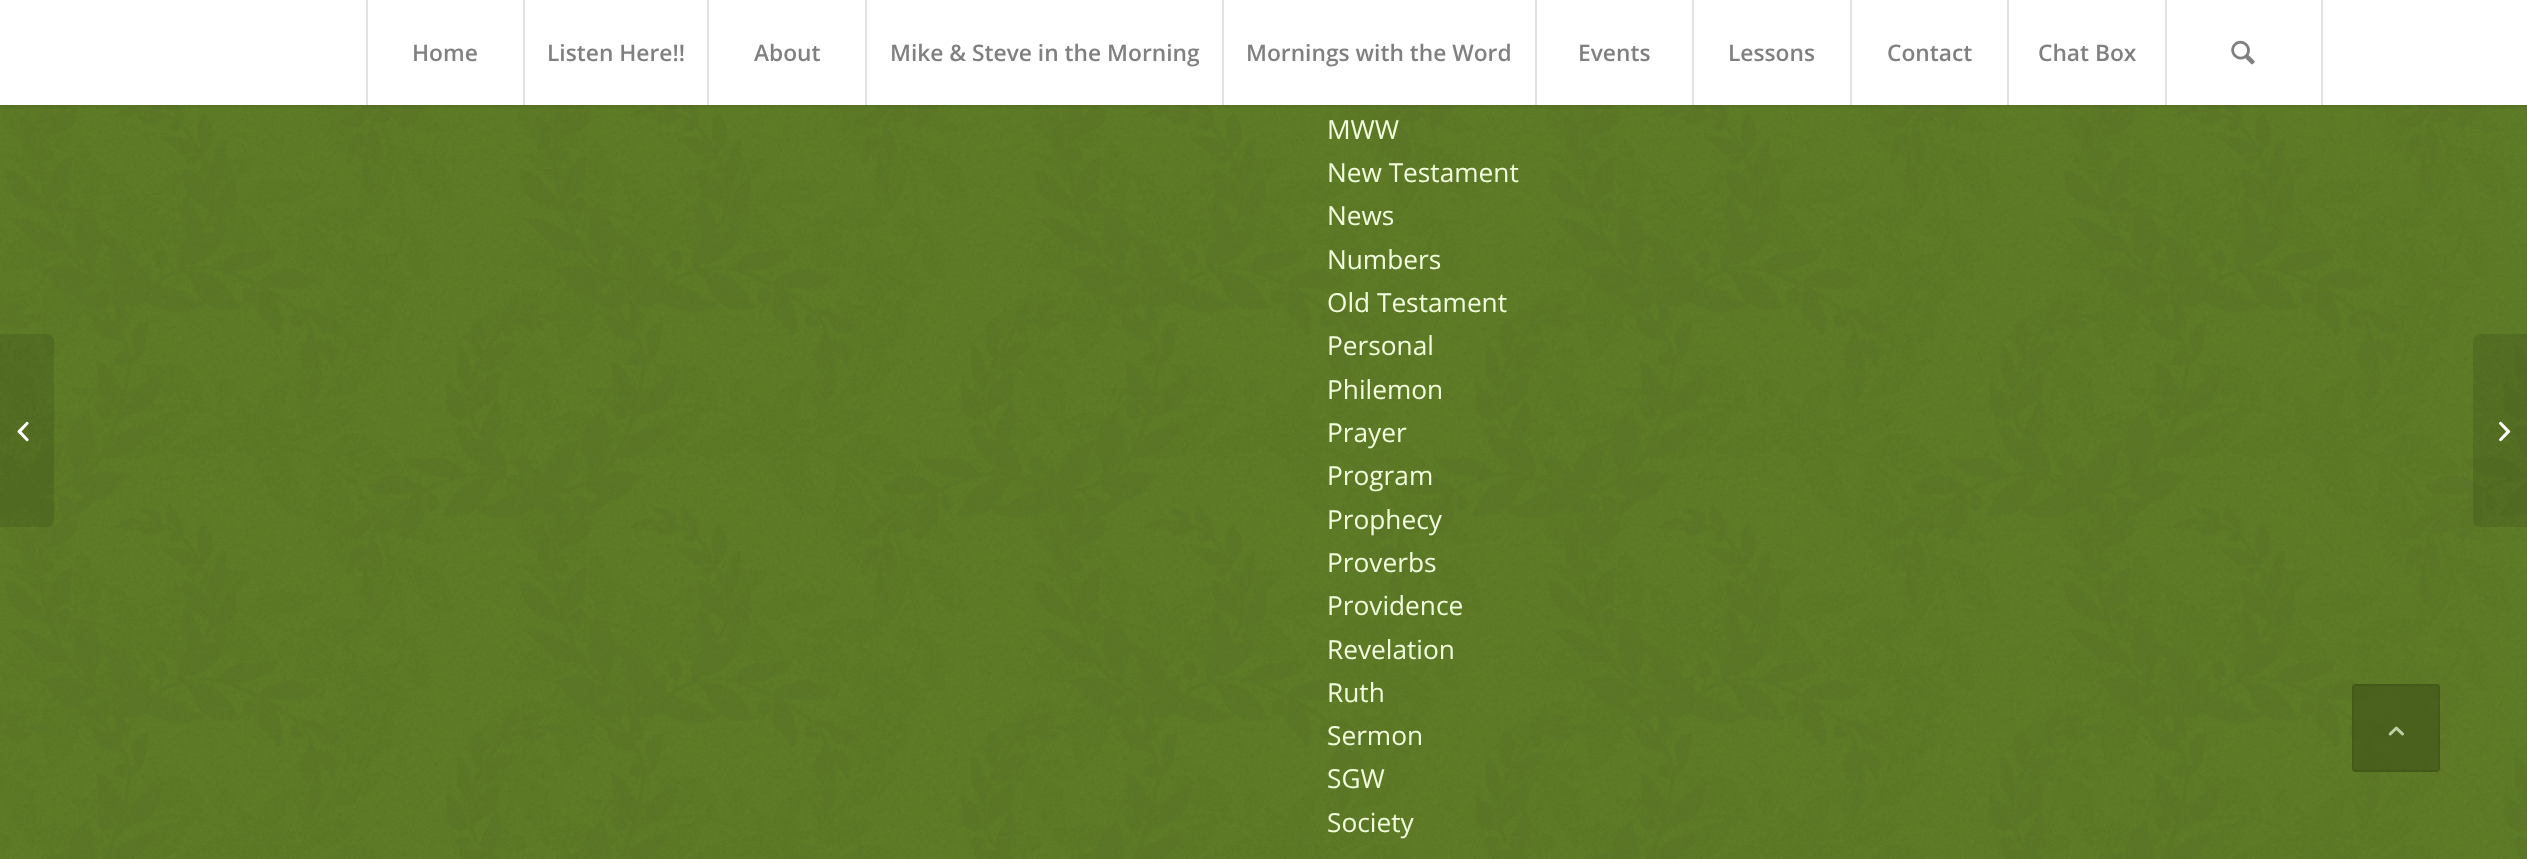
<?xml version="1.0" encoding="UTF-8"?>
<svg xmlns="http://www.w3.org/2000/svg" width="2527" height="859">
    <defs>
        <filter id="blur1" x="-50%" y="-200%" width="200%" height="500%"><feGaussianBlur stdDeviation="2"/></filter>
    </defs>
    <rect width="100%" height="100%" fill="#658529"/>
    <image x="0" y="105" width="2527" height="754" href="img_03.png"/>
    <rect x="-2" y="-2" width="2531" height="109" fill="#000000" fill-opacity="0.1" filter="url(#blur1)"/>
    <rect x="0" y="0" width="2527" height="105" fill="#FFFFFF"/>
    <rect x="366" y="0" width="2" height="105" fill="#E1E1E1"/>
    <text x="412" y="61" font-family="Open Sans" font-size="22.75" font-weight="600" fill="#808080">Home</text>
    <rect x="523" y="0" width="2" height="105" fill="#E1E1E1"/>
    <text x="547" y="61" font-family="Open Sans" font-size="22.75" font-weight="600" fill="#808080">Listen Here!!</text>
    <rect x="707" y="0" width="2" height="105" fill="#E1E1E1"/>
    <text x="754" y="61" font-family="Open Sans" font-size="22.75" font-weight="600" fill="#808080">About</text>
    <rect x="865" y="0" width="2" height="105" fill="#E1E1E1"/>
    <text x="890" y="61" font-family="Open Sans" font-size="22.75" font-weight="600" fill="#808080">Mike &amp; Steve in the Morning</text>
    <rect x="1222" y="0" width="2" height="105" fill="#E1E1E1"/>
    <text x="1246" y="61" font-family="Open Sans" font-size="22.75" font-weight="600" fill="#808080">Mornings with the Word</text>
    <rect x="1535" y="0" width="2" height="105" fill="#E1E1E1"/>
    <text x="1578" y="61" font-family="Open Sans" font-size="22.75" font-weight="600" fill="#808080">Events</text>
    <rect x="1692" y="0" width="2" height="105" fill="#E1E1E1"/>
    <text x="1728" y="61" font-family="Open Sans" font-size="22.75" font-weight="600" fill="#808080">Lessons</text>
    <rect x="1850" y="0" width="2" height="105" fill="#E1E1E1"/>
    <text x="1887" y="61" font-family="Open Sans" font-size="22.75" font-weight="600" fill="#808080">Contact</text>
    <rect x="2007" y="0" width="2" height="105" fill="#E1E1E1"/>
    <text x="2038" y="61" font-family="Open Sans" font-size="22.75" font-weight="600" fill="#808080">Chat Box</text>
    <rect x="2321" y="0" width="2" height="105" fill="#E1E1E1"/>
    <rect x="2165" y="0" width="2" height="105" fill="#E1E1E1"/>
    <image x="2231" y="40" width="24" height="25" href="img_01.png"/>
    <path d="M 0 334 H 47 C 51 334 54 337 54 341 V 520 C 54 524 51 527 47 527 H 0 Z" fill="#000000" fill-opacity="0.1"/>
    <image x="17" y="421" width="12" height="21" href="img_02.png"/>
    <text font-family="Open Sans" font-size="26.25" fill="#F3FFDE">
        <tspan x="1327" y="139">MWW</tspan>
        <tspan x="1327" y="182">New Testament</tspan>
        <tspan x="1327" y="225">News</tspan>
        <tspan x="1327" y="269">Numbers</tspan>
        <tspan x="1327" y="312">Old Testament</tspan>
        <tspan x="1327" y="355">Personal</tspan>
        <tspan x="1327" y="399">Philemon</tspan>
        <tspan x="1327" y="442">Prayer</tspan>
        <tspan x="1327" y="485">Program</tspan>
        <tspan x="1327" y="529">Prophecy</tspan>
        <tspan x="1327" y="572">Proverbs</tspan>
        <tspan x="1327" y="615">Providence</tspan>
        <tspan x="1327" y="659">Revelation</tspan>
        <tspan x="1327" y="702">Ruth</tspan>
        <tspan x="1327" y="745">Sermon</tspan>
        <tspan x="1327" y="788">SGW</tspan>
        <tspan x="1327" y="832">Society</tspan>
    </text>
    <path d="M 2480 334 H 2527 V 527 H 2480 C 2476 527 2473 524 2473 520 V 341 C 2473 337 2476 334 2480 334 Z" fill="#000000" fill-opacity="0.1"/>
    <image x="2499" y="421" width="12" height="21" href="img_04.png"/>
    <rect x="2352" y="684" width="88" height="88" rx="4" fill="#425719" fill-opacity="0.7"/>
    <rect x="2353" y="685" width="86" height="86" rx="3" fill="none" stroke="#425719" stroke-opacity="0.7" stroke-width="2"/>
    <image x="2388" y="726" width="16" height="10" href="img_05.png"/>
</svg>
